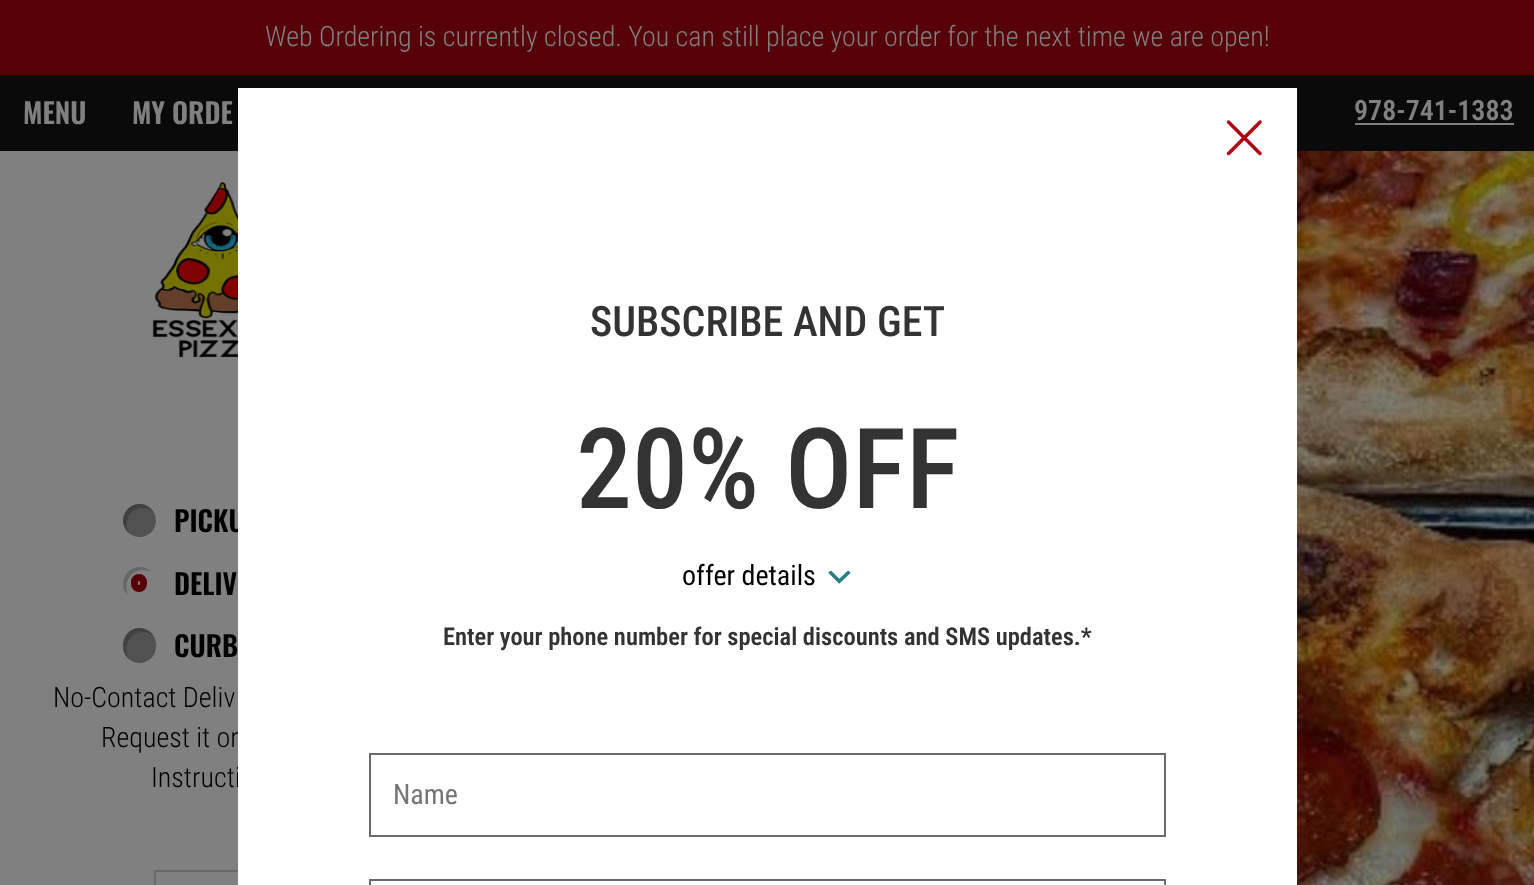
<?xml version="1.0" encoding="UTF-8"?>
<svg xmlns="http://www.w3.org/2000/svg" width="1534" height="885">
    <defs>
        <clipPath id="clip1"><rect x="828" y="571" width="24" height="14"/></clipPath>
    </defs>
    <rect width="100%" height="100%" fill="#FFFFFF"/>
    <rect x="0" y="0" width="1534" height="75" fill="#560008"/>
    <text x="265" y="46" font-family="Roboto Condensed" font-size="28" font-weight="300" fill="#808080">Web Ordering is currently closed. You can still place your order for the next time we are open!</text>
    <rect x="0" y="75" width="1534" height="76" fill="#0A0A0A"/>
    <text x="23" y="124" font-family="Oswald" font-size="28" font-weight="600" fill="#808080">MENU</text>
    <text x="132" y="124" font-family="Oswald" font-size="28" font-weight="600" fill="#808080">MY ORDE</text>
    <text x="1354" y="120" font-family="Roboto Condensed" font-size="28" font-weight="600" fill="#808080">978-741-1383</text>
    <rect x="1355" y="123" width="159" height="2" fill="#808080"/>
    <rect x="0" y="151" width="238" height="734" fill="#808080"/>
    <image x="152" y="182" width="86" height="176" href="img_01.png"/>
    <circle cx="139.5" cy="520.5" r="16.5" fill="#515151"/>
    <path d="M 143 508 C 147.5 508 151 509.5 153.5 512 C 151.5 509 149 506.5 146 505 C 128.5 498 115 521 128.5 533 C 123.5 523 128 508 143 508 Z" fill="#000000" fill-opacity="0.2"/>
    <text x="174" y="532" font-family="Oswald" font-size="28" font-weight="600" fill="#000000">PICKU</text>
    <path d="M 143 570 C 146.5 570 149.5 571 152 572.5 C 145.5 565.5 134.5 565 128 572 C 121 578.5 121.5 590 129 596 C 123 586 128 570 143 570 Z" fill="#666666"/>
    <rect x="134.5" y="577.5" width="9" height="11" rx="4.5" fill="none" stroke="#560008" stroke-width="7"/>
    <text x="174" y="595" font-family="Oswald" font-size="28" font-weight="600" fill="#000000">DELIV</text>
    <rect x="123" y="628" width="33" height="35" rx="16.5" fill="#515151"/>
    <path d="M 143 632 C 147.5 632 151.5 633.5 154 636.5 C 148.5 627 135.5 625 128 633 C 121 640 121.5 653 129 659.5 C 123 649 127.5 632 143 632 Z" fill="#000000" fill-opacity="0.2"/>
    <text x="174" y="657" font-family="Oswald" font-size="28" font-weight="600" fill="#000000">CURB</text>
    <text x="53" y="707" font-family="Roboto Condensed" font-size="28" font-weight="300" fill="#000000">No-Contact Deliv</text>
    <text x="101" y="747" font-family="Roboto Condensed" font-size="28" font-weight="300" fill="#000000">Request it on</text>
    <text x="151" y="787" font-family="Roboto Condensed" font-size="28" font-weight="300" fill="#000000">Instructi</text>
    <rect x="155" y="871" width="128" height="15" fill="none" stroke="#676A6D" stroke-width="2"/>
    <image x="1297" y="151" width="237" height="734" href="img_02.png"/>
    <rect x="238" y="88" width="1059" height="797" fill="#FFFFFF"/>
    <image x="1226" y="120" width="36" height="36" href="img_03.png"/>
    <text x="590" y="336" font-family="Roboto Condensed" font-size="42" font-weight="500" fill="#333333">SUBSCRIBE AND GET</text>
    <text x="576" y="508" font-family="Roboto Condensed" font-size="112" font-weight="500" fill="#333333">20% OFF</text>
    <text x="682" y="585" font-family="Roboto Condensed" font-size="28" fill="#000000">offer details</text>
    <g clip-path="url(#clip1)">
        <path d="M 829.5 571.5 L 840.5 582.5 M 849.5 571.5 L 838 582.5" fill="none" stroke="#287F89" stroke-width="3.5"/>
    </g>
    <text x="443" y="645" font-family="Roboto Condensed" font-size="24.5" font-weight="600" fill="#333333">Enter your phone number for special discounts and SMS updates.*</text>
    <rect x="370" y="754" width="795" height="82" fill="none" stroke="#6A6A6A" stroke-width="2"/>
    <text x="393" y="804" font-family="Roboto Condensed" font-size="28" fill="#757575">Name</text>
    <rect x="370" y="880" width="795" height="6" fill="none" stroke="#6A6A6A" stroke-width="2"/>
</svg>
